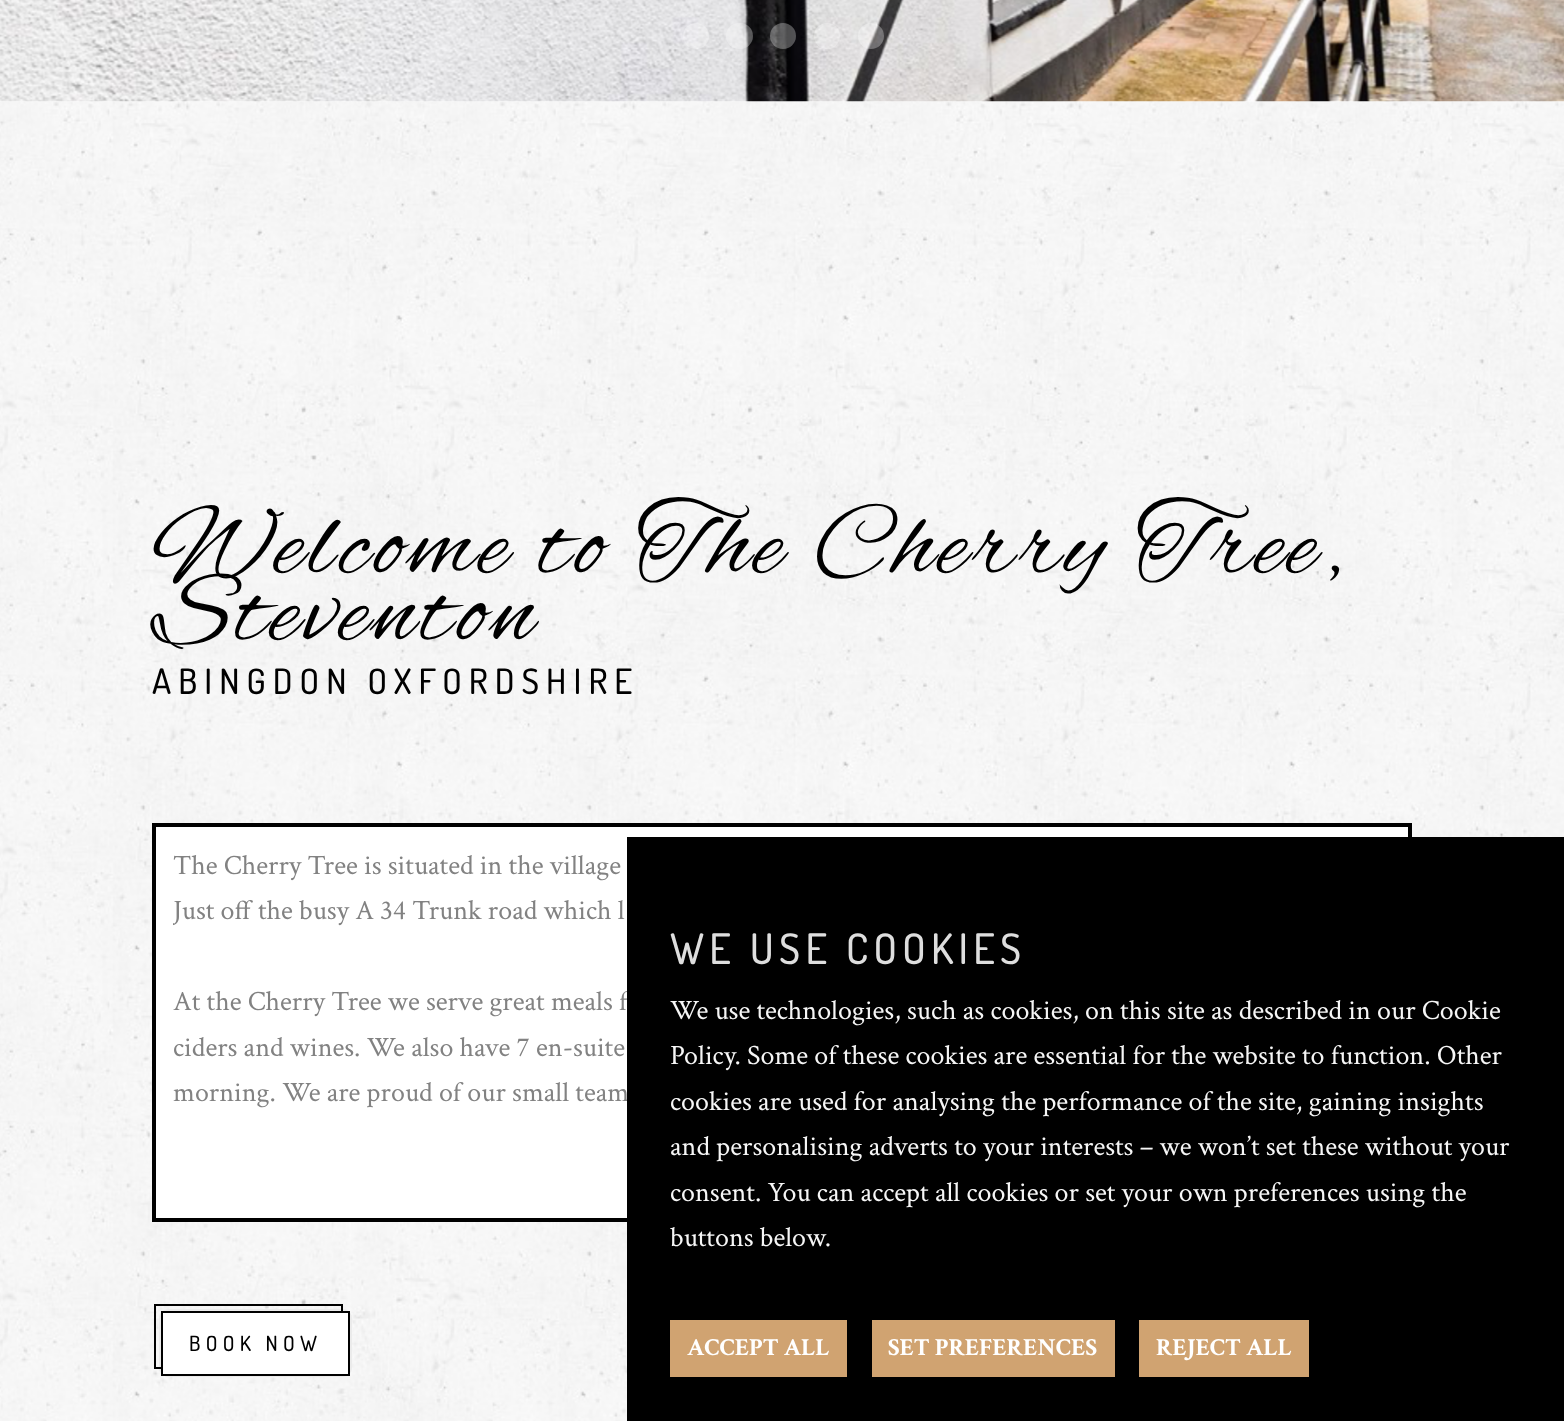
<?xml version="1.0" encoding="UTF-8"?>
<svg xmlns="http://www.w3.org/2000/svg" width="1564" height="1421">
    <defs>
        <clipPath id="clip1"><rect x="173" y="844" width="1218" height="271"/></clipPath>
    </defs>
    <rect width="100%" height="100%" fill="#FFFFFF"/>
    <image x="0" y="0" width="1564" height="102" href="img_01.png"/>
    <circle cx="696" cy="36" r="13" fill="#FFFFFF" fill-opacity="0.3"/>
    <rect x="726" y="23" width="27" height="26" rx="13" fill="#FFFFFF" fill-opacity="0.3"/>
    <circle cx="783" cy="36" r="13" fill="#FFFFFF" fill-opacity="0.3"/>
    <circle cx="827" cy="36" r="13" fill="#FFFFFF" fill-opacity="0.3"/>
    <circle cx="871" cy="36" r="13" fill="#FFFFFF" fill-opacity="0.3"/>
    <image x="0" y="101" width="1564" height="1320" href="img_02.png"/>
    <text font-family="Alex Brush" font-size="105" letter-spacing="5.25" fill="#000000">
        <tspan x="152" y="572">Welcome to The Cherry Tree,</tspan>
        <tspan x="152" y="639">Steventon</tspan>
    </text>
    <text x="152" y="694" font-family="Dosis" font-size="35" font-weight="500" letter-spacing="7" fill="#000000">ABINGDON OXFORDSHIRE</text>
    <rect x="154" y="825" width="1256" height="395" fill="#FFFFFF" stroke="#000000" stroke-width="4"/>
    <text x="173" y="874" font-family="Crimson Text" font-size="28" fill="#828282">The Cherry Tree is situated in the village</text>
    <g clip-path="url(#clip1)">
        <text x="173" y="919" font-family="Crimson Text" font-size="28" fill="#828282">Just off the busy A 34 Trunk road which l</text>
    </g>
    <text font-family="Crimson Text" font-size="28" fill="#828282">
        <tspan x="173" y="1010">At the Cherry Tree we serve great meals f</tspan>
        <tspan x="173" y="1056">ciders and wines. We also have 7 en-suite</tspan>
        <tspan x="173" y="1101">morning. We are proud of our small team</tspan>
    </text>
    <rect x="159" y="1309" width="193" height="68" rx="9" fill="#EBEBEB"/>
    <rect x="155" y="1305" width="187" height="63" fill="none" stroke="#000000" stroke-width="2"/>
    <rect x="162" y="1312" width="187" height="63" fill="#FFFFFF" stroke="#000000" stroke-width="2"/>
    <text x="189" y="1351" font-family="Dosis" font-size="21" font-weight="500" letter-spacing="5.25" fill="#000000">BOOK NOW</text>
    <rect x="627" y="837" width="937" height="584" fill="#000000"/>
    <text x="670" y="964" font-family="Dosis" font-size="42" font-weight="500" letter-spacing="5.25" fill="#DEDEDE">WE USE COOKIES</text>
    <text font-family="Crimson Text" font-size="28" fill="#F6F6F6">
        <tspan x="670" y="1019">We use technologies, such as cookies, on this site as described in our Cookie</tspan>
        <tspan x="670" y="1064">Policy. Some of these cookies are essential for the website to function. Other</tspan>
        <tspan x="670" y="1110">cookies are used for analysing the performance of the site, gaining insights</tspan>
        <tspan x="670" y="1155">and personalising adverts to your interests – we won’t set these without your</tspan>
        <tspan x="670" y="1201">consent. You can accept all cookies or set your own preferences using the</tspan>
        <tspan x="670" y="1246">buttons below.</tspan>
    </text>
    <rect x="670" y="1320" width="177" height="57" fill="#D0A371"/>
    <text x="687" y="1355" font-family="Crimson Text" font-size="24.5" font-weight="700" fill="#FFFFFF">ACCEPT ALL</text>
    <rect x="872" y="1320" width="243" height="57" fill="#D0A371"/>
    <text x="888" y="1355" font-family="Crimson Text" font-size="24.5" font-weight="700" fill="#FFFFFF">SET PREFERENCES</text>
    <rect x="1139" y="1320" width="170" height="57" fill="#D0A371"/>
    <text x="1156" y="1355" font-family="Crimson Text" font-size="24.5" font-weight="700" fill="#FFFFFF">REJECT ALL</text>
</svg>
